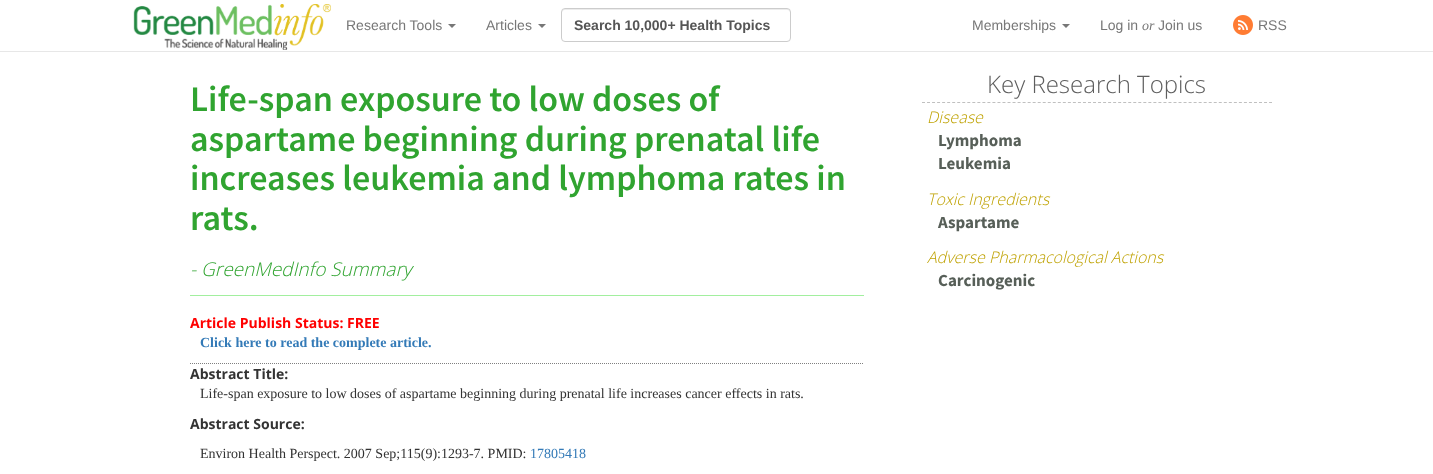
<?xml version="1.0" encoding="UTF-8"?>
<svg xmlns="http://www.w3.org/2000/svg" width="1433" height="474">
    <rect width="100%" height="100%" fill="#FFFFFF"/>
    <rect x="0" y="51" width="1433" height="1" fill="#E7E7E7"/>
    <image x="133" y="4" width="198" height="46" href="img_01.png"/>
    <text x="346" y="30" font-family="Liberation Sans" font-size="14" fill="#777777">Research Tools</text>
    <path d="M 448 24 H 456 L 452 28 Z" fill="#777777"/>
    <text x="486" y="30" font-family="Liberation Sans" font-size="14" fill="#777777">Articles</text>
    <path d="M 538 24 H 546 L 542 28 Z" fill="#777777"/>
    <path d="M 565 10 H 787 C 789 10 790 11 790 13 V 12 C 790 10 789 9 787 9 H 565 C 563 9 562 10 562 12 V 13 C 562 11 563 10 565 10 Z" fill="#ECECEC"/>
    <rect x="561.5" y="8.5" width="229" height="33" rx="3.5" fill="none" stroke="#CCCCCC"/>
    <text x="574" y="30" font-family="Liberation Sans" font-size="14" font-weight="700" fill="#555555">Search 10,000+ Health Topics</text>
    <text x="972" y="30" font-family="Liberation Sans" font-size="14" fill="#777777">Memberships</text>
    <path d="M 1062 24 H 1070 L 1066 28 Z" fill="#777777"/>
    <text x="1100" y="30" font-family="Liberation Sans" font-size="14" fill="#777777">Log in</text>
    <text x="1142" y="30" font-family="Liberation Serif" font-size="14" font-style="italic" fill="#777777">or</text>
    <text x="1158" y="30" font-family="Liberation Sans" font-size="14" fill="#777777">Join us</text>
    <image x="1233" y="15" width="20" height="20" href="img_02.png"/>
    <text x="1258" y="30" font-family="Liberation Sans" font-size="14" fill="#777777">RSS</text>
    <rect x="190" y="295" width="674" height="1" fill="#A2EF9F"/>
    <text font-family="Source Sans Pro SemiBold" font-size="36" font-weight="600" fill="#30A430">
        <tspan x="190" y="111">Life-span exposure to low doses of</tspan>
        <tspan x="190" y="151">aspartame beginning during prenatal life</tspan>
        <tspan x="190" y="190">increases leukemia and lymphoma rates in</tspan>
        <tspan x="190" y="230">rats.</tspan>
    </text>
    <text x="190" y="276" font-family="Open Sans" font-size="19" font-weight="300" font-style="italic" fill="#30A430">- GreenMedInfo Summary</text>
    <path d="M 190 363.5 H 864" fill="none" stroke="#808080" stroke-dasharray="1 1"/>
    <text x="190" y="328" font-family="Open Sans" font-size="14" font-weight="700" fill="#FF0000">Article Publish Status: FREE</text>
    <text x="200" y="347" font-family="Liberation Serif" font-size="14" font-weight="700" fill="#337AB7">Click here to read the complete article.</text>
    <text x="190" y="379" font-family="Open Sans" font-size="14" font-weight="700" fill="#333333">Abstract Title:</text>
    <text x="200" y="398" font-family="Liberation Serif" font-size="14" fill="#333333">Life-span exposure to low doses of aspartame beginning during prenatal life increases cancer effects in rats.</text>
    <text x="190" y="429" font-family="Open Sans" font-size="14" font-weight="700" fill="#333333">Abstract Source:</text>
    <text x="200" y="458" font-family="Liberation Serif" font-size="14" fill="#333333">Environ Health Perspect. 2007 Sep;115(9):1293-7. PMID:</text>
    <text x="530" y="458" font-family="Liberation Serif" font-size="14" fill="#337AB7">17805418</text>
    <path d="M 922 102.5 H 1272" fill="none" stroke="#C0C0C0" stroke-dasharray="3 2.03"/>
    <text x="987" y="93" font-family="Open Sans" font-size="24" font-weight="300" fill="#5E5E5E">Key Research Topics</text>
    <text x="927" y="123" font-family="Open Sans" font-size="16" font-weight="300" font-style="italic" fill="#BFA202">Disease</text>
    <text font-family="Source Sans Pro" font-size="17" font-weight="700" fill="#575F58">
        <tspan x="938" y="146">Lymphoma</tspan>
        <tspan x="938" y="169">Leukemia</tspan>
    </text>
    <text x="927" y="205" font-family="Open Sans" font-size="16" font-weight="300" font-style="italic" fill="#BFA202">Toxic Ingredients</text>
    <text x="938" y="228" font-family="Source Sans Pro" font-size="17" font-weight="700" fill="#575F58">Aspartame</text>
    <text x="927" y="263" font-family="Open Sans" font-size="16" font-weight="300" font-style="italic" fill="#BFA202">Adverse Pharmacological Actions</text>
    <text x="938" y="286" font-family="Source Sans Pro" font-size="17" font-weight="700" fill="#575F58">Carcinogenic</text>
</svg>
